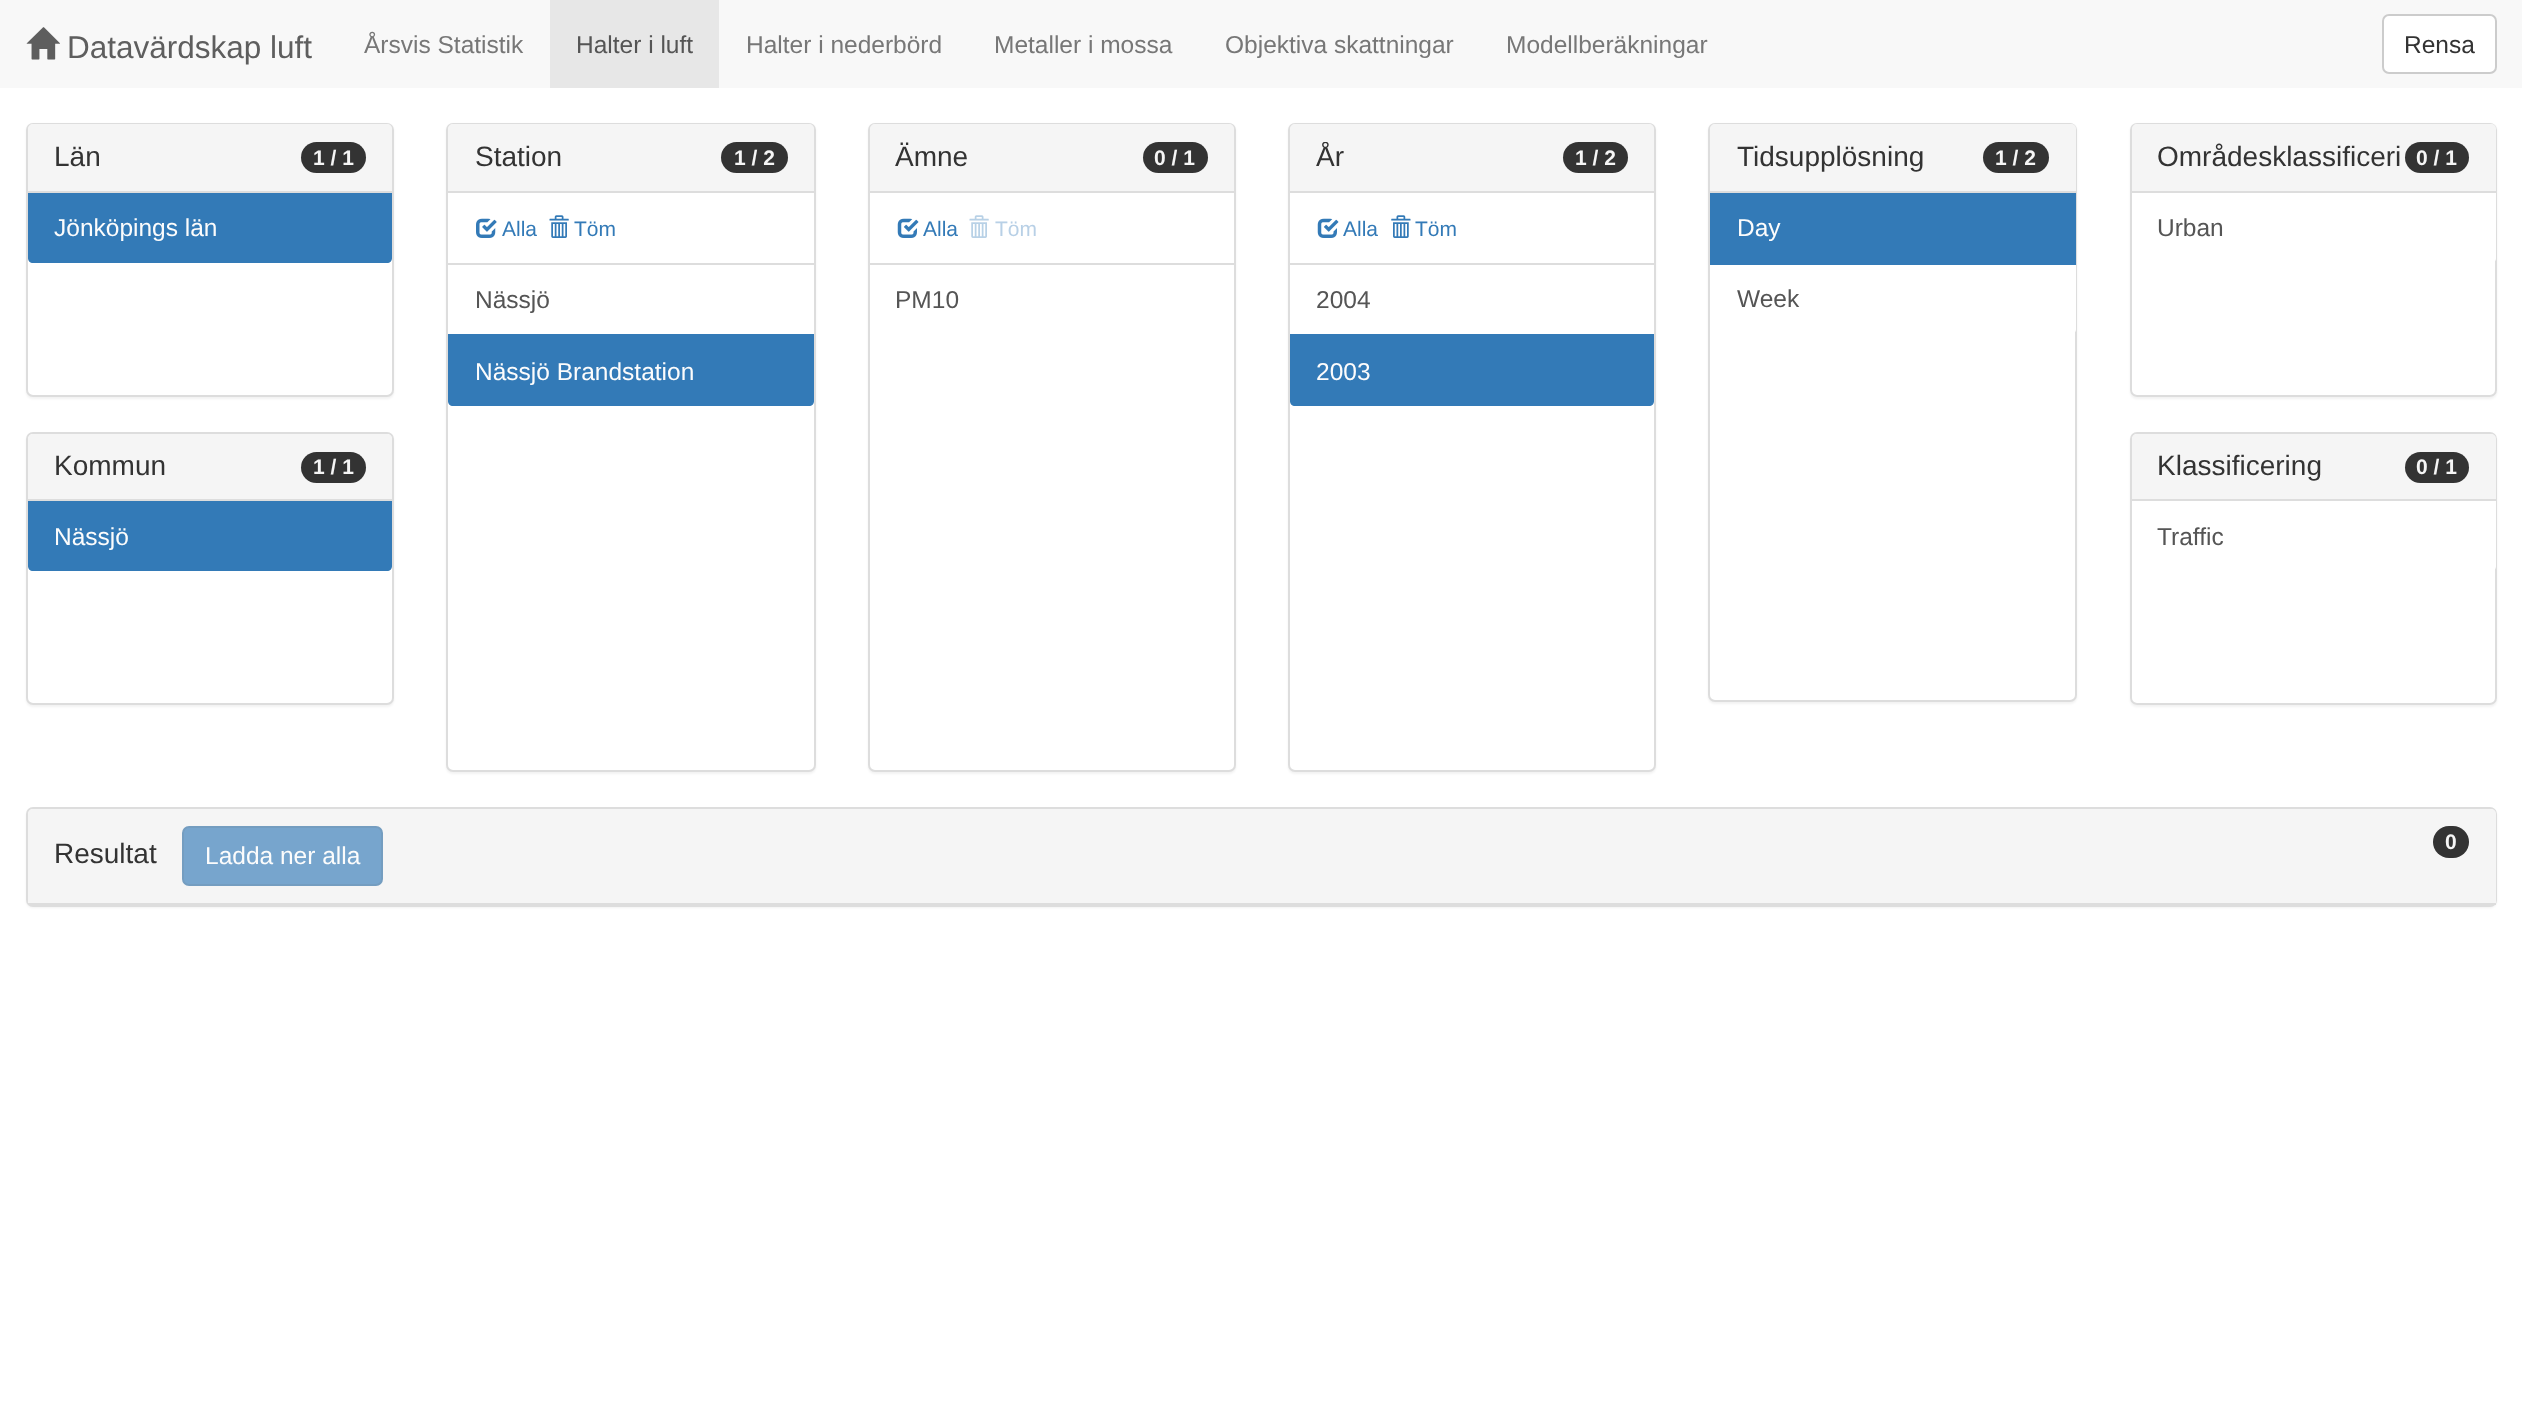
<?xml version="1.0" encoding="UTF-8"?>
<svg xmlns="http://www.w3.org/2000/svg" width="2522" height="1412">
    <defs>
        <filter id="blur1" x="-50%" y="-200%" width="200%" height="500%"><feGaussianBlur stdDeviation="1"/></filter>
        <clipPath id="clip1"><rect x="1316" y="142" width="247" height="31"/></clipPath>
        <clipPath id="clip2"><path d="M 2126 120 H 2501 V 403 H 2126 Z M 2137 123 H 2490 C 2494 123 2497 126 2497 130 V 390 C 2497 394 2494 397 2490 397 H 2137 C 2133 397 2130 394 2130 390 V 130 C 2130 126 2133 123 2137 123 Z" clip-rule="evenodd"/></clipPath>
        <clipPath id="clip3"><path d="M 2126 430 H 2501 V 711 H 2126 Z M 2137 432 H 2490 C 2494 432 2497 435 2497 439 V 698 C 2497 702 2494 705 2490 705 H 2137 C 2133 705 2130 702 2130 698 V 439 C 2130 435 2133 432 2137 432 Z" clip-rule="evenodd"/></clipPath>
    </defs>
    <rect width="100%" height="100%" fill="#FFFFFF"/>
    <rect x="0" y="0" width="2522" height="88" fill="#F8F8F8"/>
    <image x="26" y="27" width="34" height="33" href="img_01.png"/>
    <text x="67" y="58" font-family="Liberation Sans" font-size="31.5" fill="#5E5E5E">Datavärdskap luft</text>
    <text x="364" y="53" font-family="Liberation Sans" font-size="24.5" fill="#777777">Årsvis Statistik</text>
    <rect x="550" y="0" width="169" height="88" fill="#E7E7E7"/>
    <text x="576" y="53" font-family="Liberation Sans" font-size="24.5" fill="#555555">Halter i luft</text>
    <text x="746" y="53" font-family="Liberation Sans" font-size="24.5" fill="#777777">Halter i nederbörd</text>
    <text x="994" y="53" font-family="Liberation Sans" font-size="24.5" fill="#777777">Metaller i mossa</text>
    <text x="1225" y="53" font-family="Liberation Sans" font-size="24.5" fill="#777777">Objektiva skattningar</text>
    <text x="1506" y="53" font-family="Liberation Sans" font-size="24.5" fill="#777777">Modellberäkningar</text>
    <rect x="2383" y="15" width="113" height="58" rx="6" fill="#FFFFFF" stroke="#CCCCCC" stroke-width="2"/>
    <text x="2404" y="53" font-family="Liberation Sans" font-size="24.5" fill="#333333">Rensa</text>
    <rect x="26" y="124" width="368" height="275" rx="7" fill="#000000" fill-opacity="0.05" filter="url(#blur1)"/>
    <rect x="27" y="124" width="366" height="272" rx="6" fill="#FFFFFF" stroke="#DDDDDD" stroke-width="2"/>
    <path d="M 33 124 H 387 C 390 124 392 126 392 129 V 193 H 28 V 129 C 28 126 30 124 33 124 Z" fill="#F5F5F5"/>
    <rect x="28" y="191" width="364" height="2" fill="#DDDDDD"/>
    <text x="54" y="166" font-family="Liberation Sans" font-size="28" fill="#333333">Län</text>
    <rect x="301" y="142" width="65" height="31" rx="15.5" fill="#333333"/>
    <text x="313" y="165" font-family="Liberation Sans" font-size="21" font-weight="700" fill="#F5F5F5">1 / 1</text>
    <path d="M 28 193 H 392 V 258 C 392 261 390 263 387 263 H 33 C 30 263 28 261 28 258 Z" fill="#337AB7"/>
    <text x="54" y="236" font-family="Liberation Sans" font-size="24.5" fill="#FCFCFC">Jönköpings län</text>
    <rect x="26" y="434" width="368" height="273" rx="7" fill="#000000" fill-opacity="0.05" filter="url(#blur1)"/>
    <rect x="27" y="433" width="366" height="271" rx="6" fill="#FFFFFF" stroke="#DDDDDD" stroke-width="2"/>
    <path d="M 33 434 H 387 C 390 434 392 436 392 439 V 501 H 28 V 439 C 28 436 30 434 33 434 Z" fill="#F5F5F5"/>
    <rect x="28" y="499" width="364" height="2" fill="#DDDDDD"/>
    <text x="54" y="475" font-family="Liberation Sans" font-size="28" fill="#333333">Kommun</text>
    <rect x="301" y="452" width="65" height="31" rx="15.5" fill="#333333"/>
    <text x="313" y="474" font-family="Liberation Sans" font-size="21" font-weight="700" fill="#F5F5F5">1 / 1</text>
    <path d="M 28 501 H 392 V 566 C 392 569 390 571 387 571 H 33 C 30 571 28 569 28 566 Z" fill="#337AB7"/>
    <text x="54" y="545" font-family="Liberation Sans" font-size="24.5" fill="#FCFCFC">Nässjö</text>
    <rect x="446" y="124" width="370" height="650" rx="7" fill="#000000" fill-opacity="0.05" filter="url(#blur1)"/>
    <rect x="447" y="124" width="368" height="647" rx="6" fill="#FFFFFF" stroke="#DDDDDD" stroke-width="2"/>
    <path d="M 453 124 H 809 C 812 124 814 126 814 129 V 193 H 448 V 129 C 448 126 450 124 453 124 Z" fill="#F5F5F5"/>
    <rect x="448" y="191" width="366" height="2" fill="#DDDDDD"/>
    <text x="475" y="166" font-family="Liberation Sans" font-size="28" fill="#333333">Station</text>
    <rect x="721" y="142" width="67" height="31" rx="15.5" fill="#333333"/>
    <text x="734" y="165" font-family="Liberation Sans" font-size="21" font-weight="700" fill="#F5F5F5">1 / 2</text>
    <image x="476" y="218" width="21" height="20" href="img_02.png"/>
    <text x="502" y="236" font-family="Liberation Sans" font-size="21" fill="#337AB7">Alla</text>
    <image x="549" y="215" width="20" height="23" href="img_03.png"/>
    <text x="574" y="236" font-family="Liberation Sans" font-size="21" fill="#337AB7">Töm</text>
    <rect x="448" y="263" width="366" height="2" fill="#DDDDDD"/>
    <text x="475" y="308" font-family="Liberation Sans" font-size="24.5" fill="#555555">Nässjö</text>
    <path d="M 448 334 H 814 V 401 C 814 404 812 406 809 406 H 453 C 450 406 448 404 448 401 Z" fill="#337AB7"/>
    <text x="475" y="380" font-family="Liberation Sans" font-size="24.5" fill="#FCFCFC">Nässjö Brandstation</text>
    <rect x="868" y="124" width="368" height="650" rx="7" fill="#000000" fill-opacity="0.05" filter="url(#blur1)"/>
    <rect x="869" y="124" width="366" height="647" rx="6" fill="#FFFFFF" stroke="#DDDDDD" stroke-width="2"/>
    <path d="M 875 124 H 1229 C 1232 124 1234 126 1234 129 V 193 H 870 V 129 C 870 126 872 124 875 124 Z" fill="#F5F5F5"/>
    <rect x="870" y="191" width="364" height="2" fill="#DDDDDD"/>
    <text x="895" y="166" font-family="Liberation Sans" font-size="28" fill="#333333">Ämne</text>
    <rect x="1143" y="142" width="65" height="31" rx="15.5" fill="#333333"/>
    <text x="1154" y="165" font-family="Liberation Sans" font-size="21" font-weight="700" fill="#F5F5F5">0 / 1</text>
    <image x="897" y="218" width="22" height="20" href="img_04.png"/>
    <text x="923" y="236" font-family="Liberation Sans" font-size="21" fill="#337AB7">Alla</text>
    <image x="969" y="215" width="20" height="23" href="img_05.png"/>
    <text x="995" y="236" font-family="Liberation Sans" font-size="21" fill="#B8D0E6">Töm</text>
    <rect x="870" y="263" width="364" height="2" fill="#DDDDDD"/>
    <text x="895" y="308" font-family="Liberation Sans" font-size="24.5" fill="#555555">PM10</text>
    <rect x="1288" y="124" width="368" height="650" rx="7" fill="#000000" fill-opacity="0.05" filter="url(#blur1)"/>
    <rect x="1289" y="124" width="366" height="647" rx="6" fill="#FFFFFF" stroke="#DDDDDD" stroke-width="2"/>
    <path d="M 1295 124 H 1649 C 1652 124 1654 126 1654 129 V 193 H 1290 V 129 C 1290 126 1292 124 1295 124 Z" fill="#F5F5F5"/>
    <rect x="1290" y="191" width="364" height="2" fill="#DDDDDD"/>
    <g clip-path="url(#clip1)">
        <text x="1316" y="166" font-family="Liberation Sans" font-size="28" fill="#333333">År</text>
    </g>
    <rect x="1563" y="142" width="65" height="31" rx="15.5" fill="#333333"/>
    <text x="1575" y="165" font-family="Liberation Sans" font-size="21" font-weight="700" fill="#F5F5F5">1 / 2</text>
    <image x="1317" y="218" width="22" height="20" href="img_04.png"/>
    <text x="1343" y="236" font-family="Liberation Sans" font-size="21" fill="#337AB7">Alla</text>
    <image x="1391" y="215" width="20" height="23" href="img_06.png"/>
    <text x="1415" y="236" font-family="Liberation Sans" font-size="21" fill="#337AB7">Töm</text>
    <rect x="1290" y="263" width="364" height="2" fill="#DDDDDD"/>
    <text x="1316" y="308" font-family="Liberation Sans" font-size="24.5" fill="#555555">2004</text>
    <path d="M 1290 334 H 1654 V 401 C 1654 404 1652 406 1649 406 H 1295 C 1292 406 1290 404 1290 401 Z" fill="#337AB7"/>
    <text x="1316" y="380" font-family="Liberation Sans" font-size="24.5" fill="#FCFCFC">2003</text>
    <rect x="1708" y="124" width="369" height="580" rx="7" fill="#000000" fill-opacity="0.05" filter="url(#blur1)"/>
    <rect x="1709" y="124" width="367" height="577" rx="6" fill="#FFFFFF" stroke="#DDDDDD" stroke-width="2"/>
    <path d="M 1715 124 H 2071 C 2074 124 2076 126 2076 129 V 193 H 1710 V 129 C 1710 126 1712 124 1715 124 Z" fill="#F5F5F5"/>
    <rect x="1710" y="191" width="366" height="2" fill="#DDDDDD"/>
    <text x="1737" y="166" font-family="Liberation Sans" font-size="28" fill="#333333">Tidsupplösning</text>
    <rect x="1983" y="142" width="66" height="31" rx="15.5" fill="#333333"/>
    <text x="1995" y="165" font-family="Liberation Sans" font-size="21" font-weight="700" fill="#F5F5F5">1 / 2</text>
    <path d="M 1710 263 H 2076 V 329 C 2076 332 2074 334 2071 334 H 1715 C 1712 334 1710 332 1710 329 Z" fill="#FFFFFF"/>
    <rect x="1710" y="193" width="366" height="72" fill="#337AB7"/>
    <text x="1737" y="236" font-family="Liberation Sans" font-size="24.5" fill="#FCFCFC">Day</text>
    <text x="1737" y="307" font-family="Liberation Sans" font-size="24.5" fill="#555555">Week</text>
    <g clip-path="url(#clip2)">
        <rect x="2130" y="124" width="367" height="275" rx="7" fill="#000000" fill-opacity="0.05" filter="url(#blur1)"/>
    </g>
    <rect x="2131" y="124" width="365" height="272" rx="6" fill="none" stroke="#DDDDDD" stroke-width="2"/>
    <path d="M 2137 124 H 2491 C 2494 124 2496 126 2496 129 V 193 H 2132 V 129 C 2132 126 2134 124 2137 124 Z" fill="#F5F5F5"/>
    <rect x="2132" y="191" width="364" height="2" fill="#DDDDDD"/>
    <text x="2157" y="166" font-family="Liberation Sans" font-size="28" fill="#333333">Områdesklassificeri</text>
    <rect x="2405" y="142" width="64" height="31" rx="15.5" fill="#333333"/>
    <text x="2416" y="165" font-family="Liberation Sans" font-size="21" font-weight="700" fill="#F5F5F5">0 / 1</text>
    <path d="M 2132 193 H 2496 V 258 C 2496 261 2494 263 2491 263 H 2137 C 2134 263 2132 261 2132 258 Z" fill="#FFFFFF"/>
    <text x="2157" y="236" font-family="Liberation Sans" font-size="24.5" fill="#555555">Urban</text>
    <g clip-path="url(#clip3)">
        <rect x="2130" y="434" width="367" height="273" rx="7" fill="#000000" fill-opacity="0.05" filter="url(#blur1)"/>
    </g>
    <rect x="2131" y="433" width="365" height="271" rx="6" fill="none" stroke="#DDDDDD" stroke-width="2"/>
    <path d="M 2137 434 H 2491 C 2494 434 2496 436 2496 439 V 501 H 2132 V 439 C 2132 436 2134 434 2137 434 Z" fill="#F5F5F5"/>
    <rect x="2132" y="499" width="364" height="2" fill="#DDDDDD"/>
    <text x="2157" y="475" font-family="Liberation Sans" font-size="28" fill="#333333">Klassificering</text>
    <rect x="2405" y="452" width="64" height="31" rx="15.5" fill="#333333"/>
    <text x="2416" y="474" font-family="Liberation Sans" font-size="21" font-weight="700" fill="#F5F5F5">0 / 1</text>
    <path d="M 2132 501 H 2496 V 566 C 2496 569 2494 571 2491 571 H 2137 C 2134 571 2132 569 2132 566 Z" fill="#FFFFFF"/>
    <text x="2157" y="545" font-family="Liberation Sans" font-size="24.5" fill="#555555">Traffic</text>
    <rect x="26" y="809" width="2471" height="99" rx="7" fill="#000000" fill-opacity="0.05" filter="url(#blur1)"/>
    <rect x="27" y="808" width="2469" height="98" rx="6" fill="none" stroke="#DDDDDD" stroke-width="2"/>
    <path d="M 33 809 H 2491 C 2494 809 2496 811 2496 814 V 905 H 28 V 814 C 28 811 30 809 33 809 Z" fill="#F5F5F5"/>
    <rect x="28" y="903" width="2468" height="2" fill="#DDDDDD"/>
    <text x="54" y="863" font-family="Liberation Sans" font-size="28" fill="#333333">Resultat</text>
    <rect x="183" y="827" width="199" height="58" rx="6" fill="#77A5CD" stroke="#749DC0" stroke-width="2"/>
    <text x="205" y="864" font-family="Liberation Sans" font-size="24.5" fill="#FCFCFC">Ladda ner alla</text>
    <rect x="2433" y="826" width="36" height="32" rx="16" fill="#333333"/>
    <text x="2445" y="849" font-family="Liberation Sans" font-size="21" font-weight="700" fill="#F5F5F5">0</text>
</svg>
